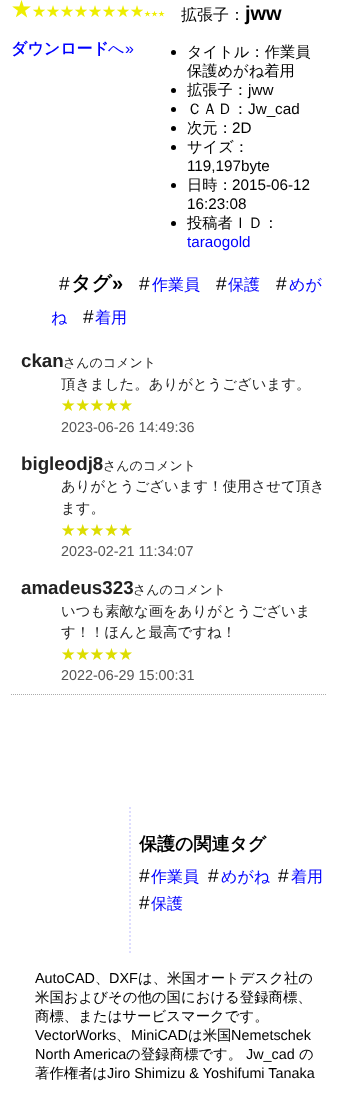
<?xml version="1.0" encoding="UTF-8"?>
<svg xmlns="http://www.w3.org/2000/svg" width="350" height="1094">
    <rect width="100%" height="100%" fill="#FFFFFF"/>
    <path d="M 11 694.5 H 326" fill="none" stroke="#AAAAAA" stroke-dasharray="1 1"/>
    <text x="11" y="16" font-family="WenQuanYi Zen Hei" font-size="21" font-weight="500" fill="#EEEE00">★</text>
    <text x="32" y="16" font-family="WenQuanYi Zen Hei" font-size="14" font-weight="500" fill="#EEEE00">★★★★★★★★</text>
    <text x="144" y="16" font-family="WenQuanYi Zen Hei" font-size="7" font-weight="500" fill="#EEEE00">★★★</text>
    <text x="11" y="54" font-family="WenQuanYi Zen Hei" font-size="16" font-weight="700" fill="#0000FF">ダウンロード</text>
    <text x="108" y="54" font-family="WenQuanYi Zen Hei" font-size="16" font-weight="500" fill="#0000FF">へ</text>
    <text x="125" y="54" font-family="Liberation Sans" font-size="16" fill="#0000FF">»</text>
    <text x="181" y="20" font-family="WenQuanYi Zen Hei" font-size="16" font-weight="500" fill="#000000">拡張子：</text>
    <text x="245" y="20" font-family="Liberation Sans" font-size="20" font-weight="700" fill="#000000">jww</text>
    <circle cx="173.5" cy="52.5" r="2.5" fill="#000000"/>
    <text font-family="WenQuanYi Zen Hei" font-size="15.25" font-weight="500" fill="#000000">
        <tspan x="187" y="57">タイトル：作業員</tspan>
        <tspan x="187" y="76">保護めがね着用</tspan>
    </text>
    <circle cx="173.5" cy="90.5" r="2.5" fill="#000000"/>
    <text x="187" y="95" font-family="WenQuanYi Zen Hei" font-size="15.25" font-weight="500" fill="#000000">拡張子：</text>
    <text x="248" y="95" font-family="Liberation Sans" font-size="15.25" fill="#000000">jww</text>
    <circle cx="173.5" cy="109.5" r="2.5" fill="#000000"/>
    <text x="187" y="114" font-family="WenQuanYi Zen Hei" font-size="15.25" font-weight="500" fill="#000000">ＣＡＤ：</text>
    <text x="248" y="114" font-family="Liberation Sans" font-size="15.25" fill="#000000">Jw_cad</text>
    <circle cx="173.5" cy="128.5" r="2.5" fill="#000000"/>
    <text x="187" y="133" font-family="WenQuanYi Zen Hei" font-size="15.25" font-weight="500" fill="#000000">次元：</text>
    <text x="232" y="133" font-family="Liberation Sans" font-size="15.25" fill="#000000">2D</text>
    <circle cx="173.5" cy="147.5" r="2.5" fill="#000000"/>
    <text x="187" y="152" font-family="WenQuanYi Zen Hei" font-size="15.25" font-weight="500" fill="#000000">サイズ：</text>
    <text x="187" y="171" font-family="Liberation Sans" font-size="15.25" fill="#000000">119,197byte</text>
    <circle cx="173.5" cy="185.5" r="2.5" fill="#000000"/>
    <text x="187" y="190" font-family="WenQuanYi Zen Hei" font-size="15.25" font-weight="500" fill="#000000">日時：</text>
    <text x="232" y="190" font-family="Liberation Sans" font-size="15.25" fill="#000000">2015-06-12</text>
    <text x="187" y="209" font-family="Liberation Sans" font-size="15.25" fill="#000000">16:23:08</text>
    <circle cx="173.5" cy="223.5" r="2.5" fill="#000000"/>
    <text x="187" y="228" font-family="WenQuanYi Zen Hei" font-size="15.25" font-weight="500" fill="#000000">投稿者ＩＤ：</text>
    <text x="187" y="247" font-family="Liberation Sans" font-size="15.25" fill="#0000FF">taraogold</text>
    <text x="59" y="290" font-family="Liberation Sans" font-size="19" fill="#000000">#</text>
    <text x="71" y="290" font-family="WenQuanYi Zen Hei" font-size="20" font-weight="700" fill="#000000">タグ</text>
    <text x="112" y="290" font-family="Liberation Sans" font-size="20" font-weight="700" fill="#000000">»</text>
    <text x="139" y="290" font-family="Liberation Sans" font-size="19" fill="#000000">#</text>
    <text x="152" y="290" font-family="WenQuanYi Zen Hei" font-size="16" font-weight="500" fill="#0000FF">作業員</text>
    <text x="216" y="290" font-family="Liberation Sans" font-size="19" fill="#000000">#</text>
    <text x="228" y="290" font-family="WenQuanYi Zen Hei" font-size="16" font-weight="500" fill="#0000FF">保護</text>
    <text x="276" y="290" font-family="Liberation Sans" font-size="19" fill="#000000">#</text>
    <text x="289" y="290" font-family="WenQuanYi Zen Hei" font-size="16" font-weight="500" fill="#0000FF">めが</text>
    <text x="51" y="323" font-family="WenQuanYi Zen Hei" font-size="16" font-weight="500" fill="#0000FF">ね</text>
    <text x="83" y="323" font-family="Liberation Sans" font-size="19" fill="#000000">#</text>
    <text x="95" y="323" font-family="WenQuanYi Zen Hei" font-size="16" font-weight="500" fill="#0000FF">着用</text>
    <text x="21" y="367" font-family="Liberation Sans" font-size="18.75" font-weight="700" fill="#222222">ckan</text>
    <text x="63" y="367" font-family="WenQuanYi Zen Hei" font-size="13" font-weight="500" fill="#222222">さんのコメント</text>
    <text x="61" y="389" font-family="WenQuanYi Zen Hei" font-size="14.4" font-weight="500" fill="#222222">頂きました。ありがとうございます。</text>
    <text x="61" y="410" font-family="WenQuanYi Zen Hei" font-size="14.4" font-weight="500" fill="#DDDD00">★★★★★</text>
    <text x="61" y="432" font-family="Liberation Sans" font-size="14.4" fill="#555555">2023-06-26 14:49:36</text>
    <text x="21" y="470" font-family="Liberation Sans" font-size="18.75" font-weight="700" fill="#222222">bigleodj8</text>
    <text x="103" y="470" font-family="WenQuanYi Zen Hei" font-size="13" font-weight="500" fill="#222222">さんのコメント</text>
    <text font-family="WenQuanYi Zen Hei" font-size="14.4" font-weight="500" fill="#222222">
        <tspan x="61" y="491">ありがとうございます！使用させて頂き</tspan>
        <tspan x="61" y="513">ます。</tspan>
    </text>
    <text x="61" y="535" font-family="WenQuanYi Zen Hei" font-size="14.4" font-weight="500" fill="#DDDD00">★★★★★</text>
    <text x="61" y="556" font-family="Liberation Sans" font-size="14.4" fill="#555555">2023-02-21 11:34:07</text>
    <text x="21" y="594" font-family="Liberation Sans" font-size="18.75" font-weight="700" fill="#222222">amadeus323</text>
    <text x="133" y="594" font-family="WenQuanYi Zen Hei" font-size="13" font-weight="500" fill="#222222">さんのコメント</text>
    <text font-family="WenQuanYi Zen Hei" font-size="14.4" font-weight="500" fill="#222222">
        <tspan x="61" y="616">いつも素敵な画をありがとうございま</tspan>
        <tspan x="61" y="637">す！！ほんと最高ですね！</tspan>
    </text>
    <text x="61" y="659" font-family="WenQuanYi Zen Hei" font-size="14.4" font-weight="500" fill="#DDDD00">★★★★★</text>
    <text x="61" y="680" font-family="Liberation Sans" font-size="14.4" fill="#555555">2022-06-29 15:00:31</text>
    <path d="M 130 807 V 955" fill="none" stroke="#DDDDFF" stroke-width="2" stroke-dasharray="2 2"/>
    <text x="139" y="850" font-family="WenQuanYi Zen Hei" font-size="18" font-weight="700" fill="#000000">保護の関連タグ</text>
    <text x="139" y="882" font-family="Liberation Sans" font-size="19" fill="#000000">#</text>
    <text x="151" y="882" font-family="WenQuanYi Zen Hei" font-size="16" font-weight="500" fill="#0000FF">作業員</text>
    <text x="208" y="882" font-family="Liberation Sans" font-size="19" fill="#000000">#</text>
    <text x="221" y="882" font-family="WenQuanYi Zen Hei" font-size="16" font-weight="500" fill="#0000FF">めがね</text>
    <text x="278" y="882" font-family="Liberation Sans" font-size="19" fill="#000000">#</text>
    <text x="291" y="882" font-family="WenQuanYi Zen Hei" font-size="16" font-weight="500" fill="#0000FF">着用</text>
    <text x="139" y="909" font-family="Liberation Sans" font-size="19" fill="#000000">#</text>
    <text x="151" y="909" font-family="WenQuanYi Zen Hei" font-size="16" font-weight="500" fill="#0000FF">保護</text>
    <text x="35" y="983" font-family="Liberation Sans" font-size="14.4" fill="#000000">AutoCAD</text>
    <text x="95" y="983" font-family="WenQuanYi Zen Hei" font-size="14.4" font-weight="500" fill="#000000">、</text>
    <text x="109" y="983" font-family="Liberation Sans" font-size="14.4" fill="#000000">DXF</text>
    <text x="138" y="983" font-family="WenQuanYi Zen Hei" font-size="14.4" font-weight="500" fill="#000000">は、米国オートデスク社の</text>
    <text font-family="WenQuanYi Zen Hei" font-size="14.4" font-weight="500" fill="#000000">
        <tspan x="35" y="1002">米国およびその他の国における登録商標、</tspan>
        <tspan x="35" y="1021">商標、またはサービスマークです。</tspan>
    </text>
    <text x="35" y="1040" font-family="Liberation Sans" font-size="14.4" fill="#000000">VectorWorks</text>
    <text x="116" y="1040" font-family="WenQuanYi Zen Hei" font-size="14.4" font-weight="500" fill="#000000">、</text>
    <text x="131" y="1040" font-family="Liberation Sans" font-size="14.4" fill="#000000">MiniCAD</text>
    <text x="188" y="1040" font-family="WenQuanYi Zen Hei" font-size="14.4" font-weight="500" fill="#000000">は米国</text>
    <text x="231" y="1040" font-family="Liberation Sans" font-size="14.4" fill="#000000">Nemetschek</text>
    <text x="35" y="1059" font-family="Liberation Sans" font-size="14.4" fill="#000000">North America</text>
    <text x="126" y="1059" font-family="WenQuanYi Zen Hei" font-size="14.4" font-weight="500" fill="#000000">の登録商標です。</text>
    <text x="246" y="1059" font-family="Liberation Sans" font-size="14.4" fill="#000000">Jw_cad</text>
    <text x="299" y="1059" font-family="WenQuanYi Zen Hei" font-size="14.4" font-weight="500" fill="#000000">の</text>
    <text x="35" y="1078" font-family="WenQuanYi Zen Hei" font-size="14.4" font-weight="500" fill="#000000">著作権者は</text>
    <text x="107" y="1078" font-family="Liberation Sans" font-size="14.4" fill="#000000">Jiro Shimizu &amp; Yoshifumi Tanaka</text>
</svg>
